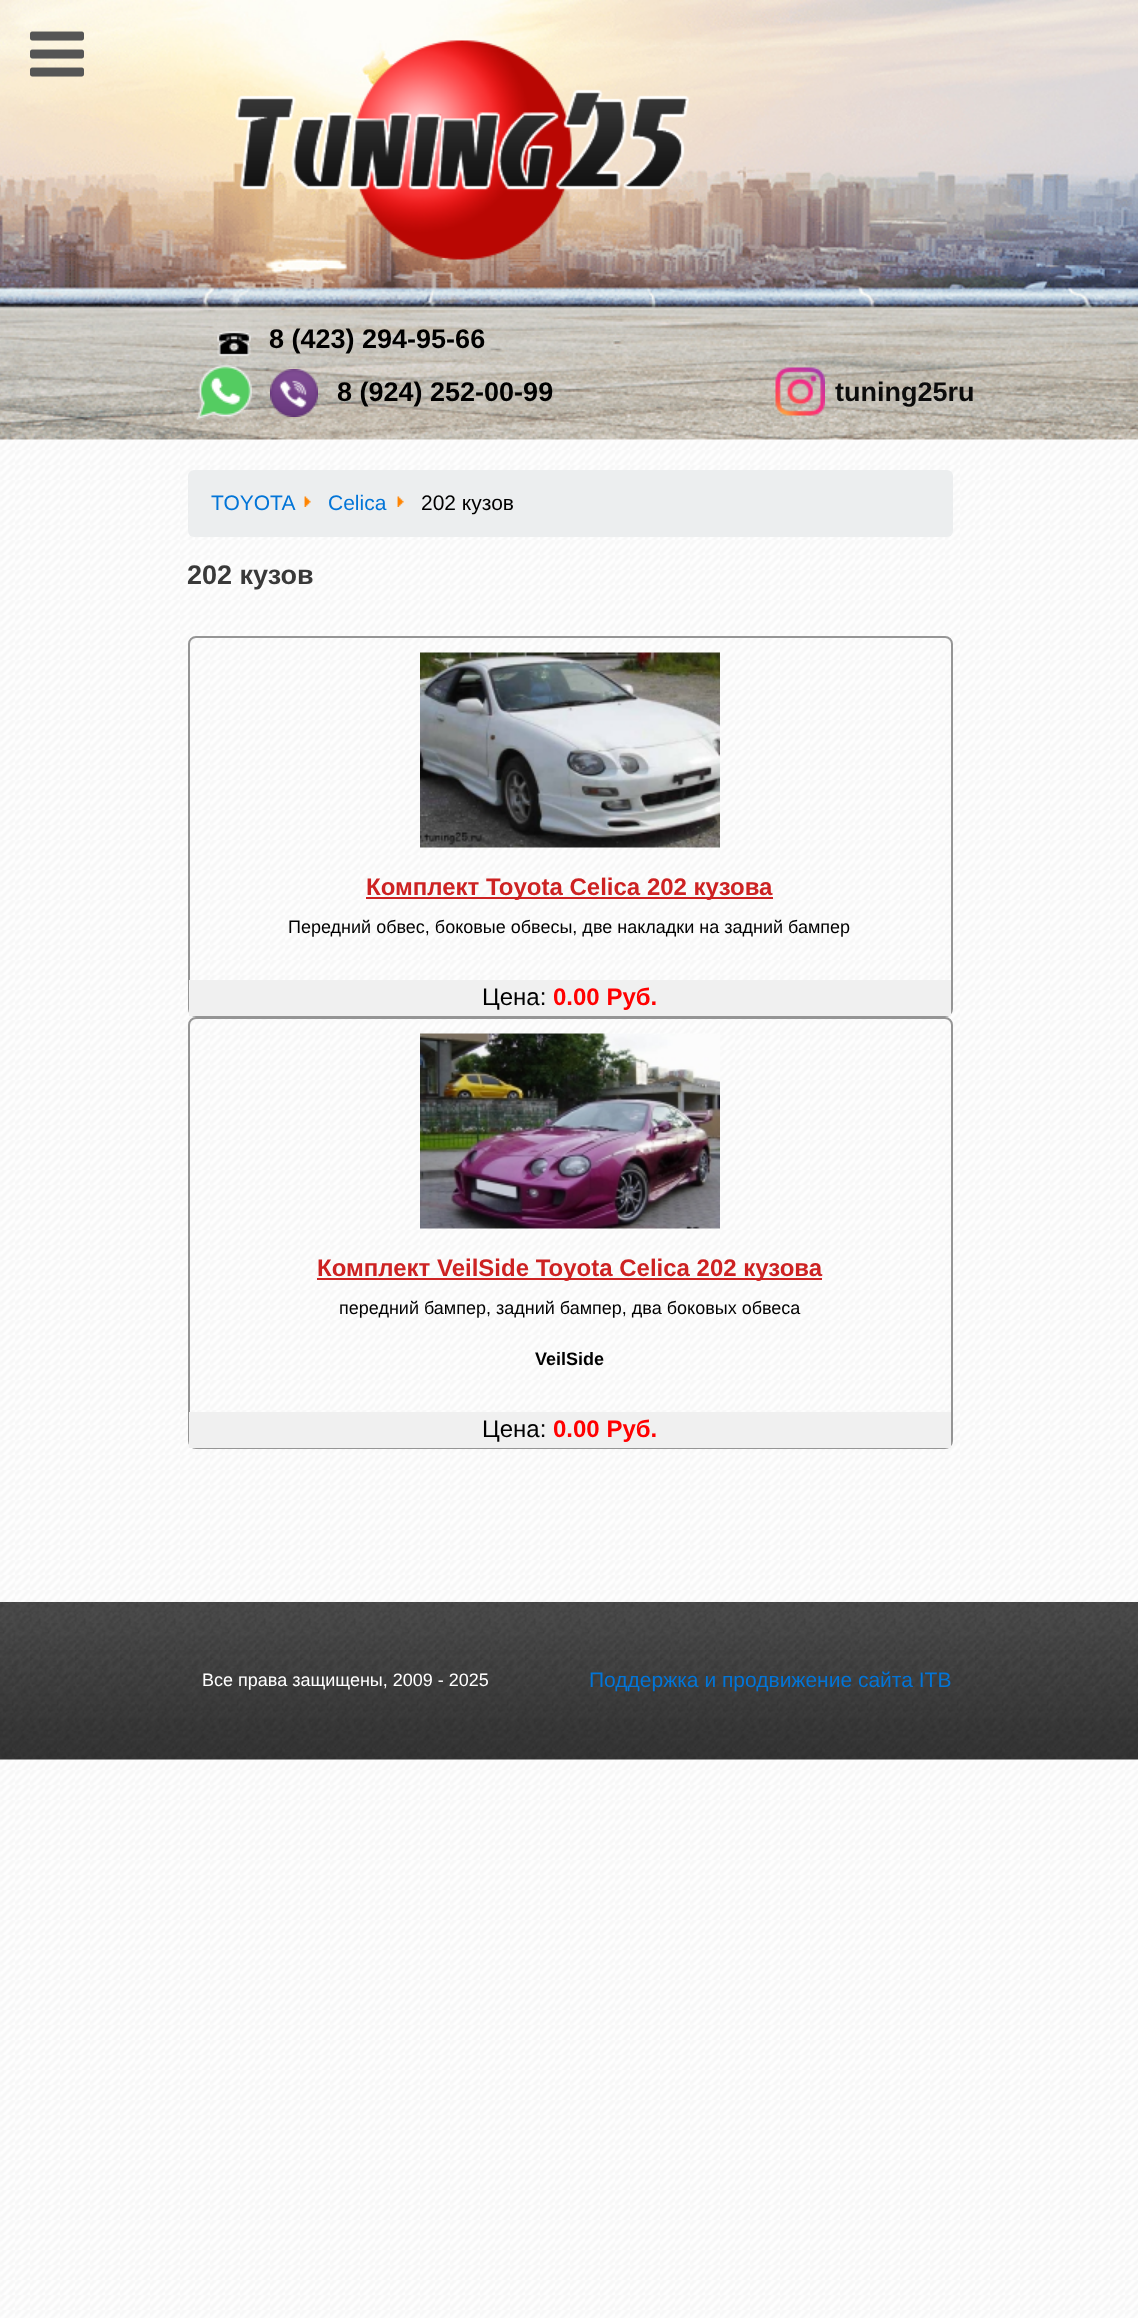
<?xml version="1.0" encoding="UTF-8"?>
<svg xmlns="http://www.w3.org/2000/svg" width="1138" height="2318">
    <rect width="100%" height="100%" fill="#FFFFFF"/>
    <image x="0" y="439" width="1138" height="1879" href="img_01.png"/>
    <image x="0" y="0" width="1138" height="440" href="img_03.png"/>
    <image x="30" y="31" width="54" height="46" href="img_02.png"/>
    <image x="235" y="40" width="455" height="220" href="img_04.png"/>
    <image x="217" y="331" width="34" height="25" href="img_05.png"/>
    <text x="269" y="348" font-family="Liberation Sans" font-size="27" font-weight="700" fill="#000000">8 (423) 294-95-66</text>
    <image x="196" y="365" width="122" height="55" href="img_06.png"/>
    <text x="337" y="401" font-family="Liberation Sans" font-size="27" font-weight="700" fill="#000000">8 (924) 252-00-99</text>
    <image x="775" y="367" width="50" height="49" href="img_07.png"/>
    <text x="835" y="401" font-family="Liberation Sans" font-size="27" font-weight="700" fill="#0C0C0C">tuning25ru</text>
    <rect x="188" y="470" width="765" height="67" rx="6" fill="#ECEEEF"/>
    <text x="211" y="510" font-family="Liberation Sans" font-size="21" fill="#0275D8">TOYOTA</text>
    <image x="304" y="496" width="7" height="11" href="img_08.png"/>
    <text x="328" y="510" font-family="Liberation Sans" font-size="21" fill="#0275D8">Celica</text>
    <image x="397" y="496" width="7" height="11" href="img_08.png"/>
    <text x="421" y="510" font-family="Liberation Sans" font-size="21" fill="#000000">202 кузов</text>
    <text x="187" y="584" font-family="Liberation Sans" font-size="27" font-weight="700" fill="#393939">202 кузов</text>
    <rect x="189" y="637" width="763" height="379" rx="7" fill="none" stroke="#959595" stroke-width="2"/>
    <image x="420" y="652" width="300" height="196" href="img_09.png"/>
    <rect x="366" y="897" width="407" height="2" fill="#CD2222"/>
    <text x="366" y="895" font-family="Liberation Sans" font-size="24" font-weight="700" fill="#CD2222">Комплект Toyota Celica 202 кузова</text>
    <text x="288" y="933" font-family="Liberation Sans" font-size="18" fill="#000000">Передний обвес, боковые обвесы, две накладки на задний бампер</text>
    <rect x="189" y="980" width="762" height="36" fill="#F0F0F0"/>
    <text x="482" y="1005" font-family="Liberation Sans" font-size="24" fill="#000000">Цена:</text>
    <text x="553" y="1005" font-family="Liberation Sans" font-size="24" font-weight="700" fill="#FF0000">0.00 Руб.</text>
    <rect x="189" y="1018" width="763" height="430" rx="7" fill="none" stroke="#959595" stroke-width="2"/>
    <image x="420" y="1033" width="300" height="196" href="img_10.png"/>
    <rect x="317" y="1278" width="505" height="2" fill="#CD2222"/>
    <text x="317" y="1276" font-family="Liberation Sans" font-size="24" font-weight="700" fill="#CD2222">Комплект VeilSide Toyota Celica 202 кузова</text>
    <text x="339" y="1314" font-family="Liberation Sans" font-size="18" fill="#000000">передний бампер, задний бампер, два боковых обвеса</text>
    <text x="535" y="1365" font-family="Liberation Sans" font-size="18" font-weight="700" fill="#000000">VeilSide</text>
    <rect x="189" y="1412" width="762" height="36" fill="#F0F0F0"/>
    <text x="482" y="1437" font-family="Liberation Sans" font-size="24" fill="#000000">Цена:</text>
    <text x="553" y="1437" font-family="Liberation Sans" font-size="24" font-weight="700" fill="#FF0000">0.00 Руб.</text>
    <image x="0" y="1602" width="1138" height="158" href="img_11.png"/>
    <text x="202" y="1686" font-family="Liberation Sans" font-size="18" fill="#FFFFFF">Все права защищены, 2009 - 2025</text>
    <text x="589" y="1687" font-family="Liberation Sans" font-size="21" fill="#0275D8">Поддержка и продвижение сайта ITB</text>
</svg>
